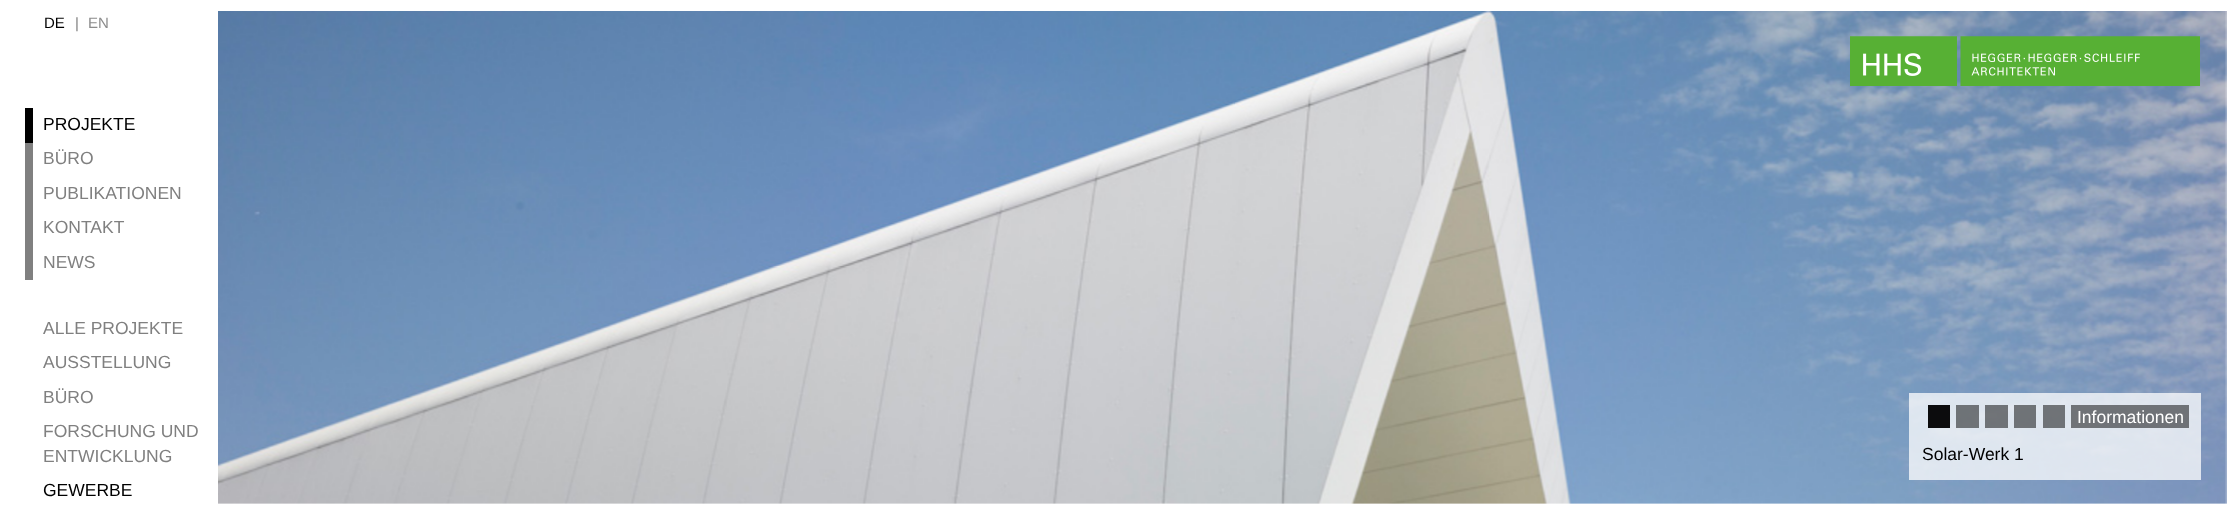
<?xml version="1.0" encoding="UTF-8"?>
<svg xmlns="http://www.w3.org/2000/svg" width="2237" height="516">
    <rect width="100%" height="100%" fill="#FFFFFF"/>
    <text x="44" y="28" font-family="Liberation Sans" font-size="15" fill="#000000">DE</text>
    <text x="75" y="28" font-family="Liberation Sans" font-size="15" fill="#808080">|</text>
    <text x="88" y="28" font-family="Liberation Sans" font-size="15" fill="#8C8C8C">EN</text>
    <image x="218" y="11" width="2009" height="493" href="img_02.png"/>
    <image x="1850" y="36" width="350" height="50" href="img_01.png"/>
    <rect x="25" y="108" width="8" height="35" fill="#000000"/>
    <text x="43" y="130" font-family="Liberation Sans" font-size="17.5" fill="#000000">PROJEKTE</text>
    <rect x="25" y="143" width="8" height="137" fill="#808080"/>
    <text x="43" y="164" font-family="Liberation Sans" font-size="17.5" fill="#808080">BÜRO</text>
    <text font-family="Liberation Sans" font-size="17.5" fill="#808080">
        <tspan x="43" y="199">PUBLIKATIONEN</tspan>
        <tspan x="43" y="233">KONTAKT</tspan>
    </text>
    <text x="43" y="268" font-family="Liberation Sans" font-size="17.5" fill="#808080">NEWS</text>
    <text font-family="Liberation Sans" font-size="17.5" fill="#808080">
        <tspan x="43" y="334">ALLE PROJEKTE</tspan>
        <tspan x="43" y="368">AUSSTELLUNG</tspan>
    </text>
    <text font-family="Liberation Sans" font-size="17.5" fill="#808080">
        <tspan x="43" y="403">BÜRO</tspan>
        <tspan x="43" y="437">FORSCHUNG UND</tspan>
        <tspan x="43" y="462">ENTWICKLUNG</tspan>
    </text>
    <text x="43" y="496" font-family="Liberation Sans" font-size="17.5" fill="#000000">GEWERBE</text>
    <rect x="1909" y="393" width="292" height="87" fill="#FFFFFF" fill-opacity="0.75"/>
    <rect x="1928" y="405" width="22" height="23" fill="#000000" fill-opacity="0.95"/>
    <rect x="1956" y="405" width="23" height="23" fill="#000000" fill-opacity="0.5"/>
    <rect x="1985" y="405" width="23" height="23" fill="#000000" fill-opacity="0.5"/>
    <rect x="2014" y="405" width="22" height="23" fill="#000000" fill-opacity="0.5"/>
    <rect x="2043" y="405" width="22" height="23" fill="#000000" fill-opacity="0.5"/>
    <rect x="2071" y="405" width="118" height="23" fill="#000000" fill-opacity="0.5"/>
    <text x="2077" y="423" font-family="Liberation Sans" font-size="17.5" fill="#FFFFFF">Informationen</text>
    <text x="1922" y="460" font-family="Liberation Sans" font-size="17.5" fill="#000000">Solar-Werk 1</text>
</svg>
